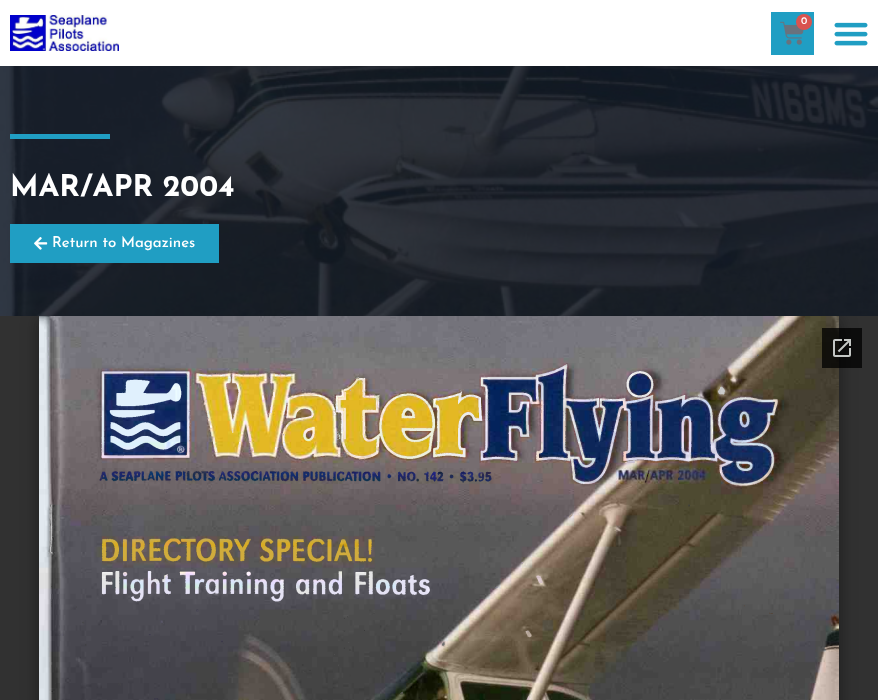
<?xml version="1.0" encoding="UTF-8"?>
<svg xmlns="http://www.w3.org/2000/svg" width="878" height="700">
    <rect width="100%" height="100%" fill="#FFFFFF"/>
    <image x="10" y="15" width="109" height="36" href="img_01.png"/>
    <rect x="771" y="12" width="43" height="43" fill="#209EC3"/>
    <image x="780" y="21" width="24" height="24" href="img_02.png"/>
    <circle cx="804" cy="22" r="8" fill="#D9534F"/>
    <text x="801" y="24" font-family="Josefin Sans" font-size="10" font-weight="600" fill="#FFFFFF">0</text>
    <image x="834" y="22" width="34" height="24" href="img_03.png"/>
    <image x="0" y="66" width="878" height="250" href="img_04.png"/>
    <rect x="10" y="134" width="100" height="5" fill="#209EC3"/>
    <text x="10" y="196" font-family="Josefin Sans" font-size="30" font-weight="700" fill="#FFFFFF">MAR/APR 2004</text>
    <rect x="10" y="224" width="209" height="39" fill="#209EC3"/>
    <image x="34" y="237" width="14" height="13" href="img_05.png"/>
    <text x="52" y="247" font-family="Josefin Sans" font-size="15" font-weight="500" fill="#FFFFFF">Return to Magazines</text>
    <image x="0" y="316" width="878" height="384" href="img_06.png"/>
</svg>
